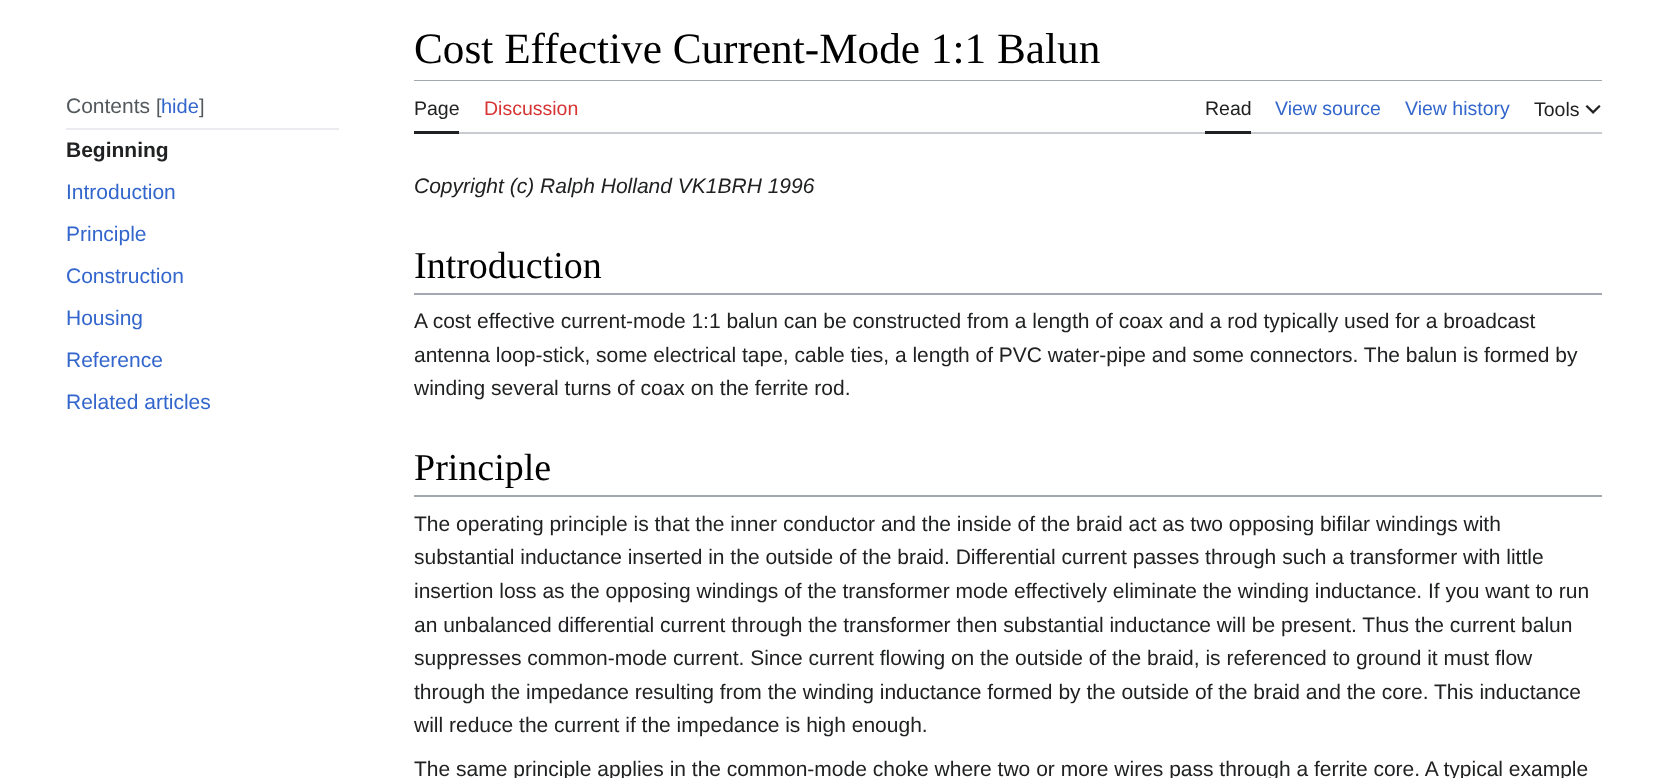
<?xml version="1.0" encoding="UTF-8"?>
<svg xmlns="http://www.w3.org/2000/svg" width="1668" height="778">
    <rect width="100%" height="100%" fill="#FFFFFF"/>
    <rect x="66" y="128" width="273" height="2" fill="#EAECF0"/>
    <text x="66" y="113" font-family="Liberation Sans" font-size="21" fill="#54595D">Contents</text>
    <text x="156" y="113" font-family="Liberation Sans" font-size="20" fill="#54595D">[</text>
    <text x="161" y="113" font-family="Liberation Sans" font-size="20" fill="#3366CC">hide</text>
    <text x="199" y="113" font-family="Liberation Sans" font-size="20" fill="#54595D">]</text>
    <text x="66" y="157" font-family="Liberation Sans" font-size="21" font-weight="700" fill="#202122">Beginning</text>
    <text x="66" y="199" font-family="Liberation Sans" font-size="21" fill="#3366CC">Introduction</text>
    <text x="66" y="241" font-family="Liberation Sans" font-size="21" fill="#3366CC">Principle</text>
    <text x="66" y="283" font-family="Liberation Sans" font-size="21" fill="#3366CC">Construction</text>
    <text x="66" y="325" font-family="Liberation Sans" font-size="21" fill="#3366CC">Housing</text>
    <text x="66" y="367" font-family="Liberation Sans" font-size="21" fill="#3366CC">Reference</text>
    <text x="66" y="409" font-family="Liberation Sans" font-size="21" fill="#3366CC">Related articles</text>
    <rect x="414" y="80" width="1188" height="1" fill="#A2A9B1"/>
    <text x="414" y="63" font-family="Liberation Serif" font-size="43.25" fill="#000000">Cost Effective Current-Mode 1:1 Balun</text>
    <rect x="459" y="132" width="1143" height="2" fill="#C8CCD1"/>
    <rect x="414" y="131" width="45" height="3" fill="#202122"/>
    <text x="414" y="115" font-family="Liberation Sans" font-size="19.5" fill="#202122">Page</text>
    <text x="484" y="115" font-family="Liberation Sans" font-size="19.5" fill="#D73333">Discussion</text>
    <rect x="1205" y="131" width="46" height="3" fill="#202122"/>
    <text x="1205" y="115" font-family="Liberation Sans" font-size="19.5" fill="#202122">Read</text>
    <text x="1275" y="115" font-family="Liberation Sans" font-size="19.5" fill="#3366CC">View source</text>
    <text x="1405" y="115" font-family="Liberation Sans" font-size="19.5" fill="#3366CC">View history</text>
    <text x="1534" y="116" font-family="Liberation Sans" font-size="19.5" fill="#202122">Tools</text>
    <image x="1585" y="105" width="16" height="9" href="img_01.png"/>
    <text x="414" y="193" font-family="Liberation Sans" font-size="21" font-style="italic" fill="#202122">Copyright (c) Ralph Holland VK1BRH 1996</text>
    <rect x="414" y="293" width="1188" height="2" fill="#A2A9B1"/>
    <text x="414" y="278" font-family="Liberation Serif" font-size="38" fill="#000000">Introduction</text>
    <text font-family="Liberation Sans" font-size="21" fill="#202122">
        <tspan x="414" y="328">A cost effective current-mode 1:1 balun can be constructed from a length of coax and a rod typically used for a broadcast</tspan>
        <tspan x="414" y="362">antenna loop-stick, some electrical tape, cable ties, a length of PVC water-pipe and some connectors. The balun is formed by</tspan>
        <tspan x="414" y="395">winding several turns of coax on the ferrite rod.</tspan>
    </text>
    <rect x="414" y="495" width="1188" height="2" fill="#A2A9B1"/>
    <text x="414" y="480" font-family="Liberation Serif" font-size="38" fill="#000000">Principle</text>
    <text font-family="Liberation Sans" font-size="21" fill="#202122">
        <tspan x="414" y="531">The operating principle is that the inner conductor and the inside of the braid act as two opposing bifilar windings with</tspan>
        <tspan x="414" y="564">substantial inductance inserted in the outside of the braid. Differential current passes through such a transformer with little</tspan>
        <tspan x="414" y="598">insertion loss as the opposing windings of the transformer mode effectively eliminate the winding inductance. If you want to run</tspan>
        <tspan x="414" y="632">an unbalanced differential current through the transformer then substantial inductance will be present. Thus the current balun</tspan>
        <tspan x="414" y="665">suppresses common-mode current. Since current flowing on the outside of the braid, is referenced to ground it must flow</tspan>
        <tspan x="414" y="699">through the impedance resulting from the winding inductance formed by the outside of the braid and the core. This inductance</tspan>
        <tspan x="414" y="732">will reduce the current if the impedance is high enough.</tspan>
    </text>
    <text x="414" y="776" font-family="Liberation Sans" font-size="21" fill="#202122">The same principle applies in the common-mode choke where two or more wires pass through a ferrite core. A typical example</text>
</svg>
